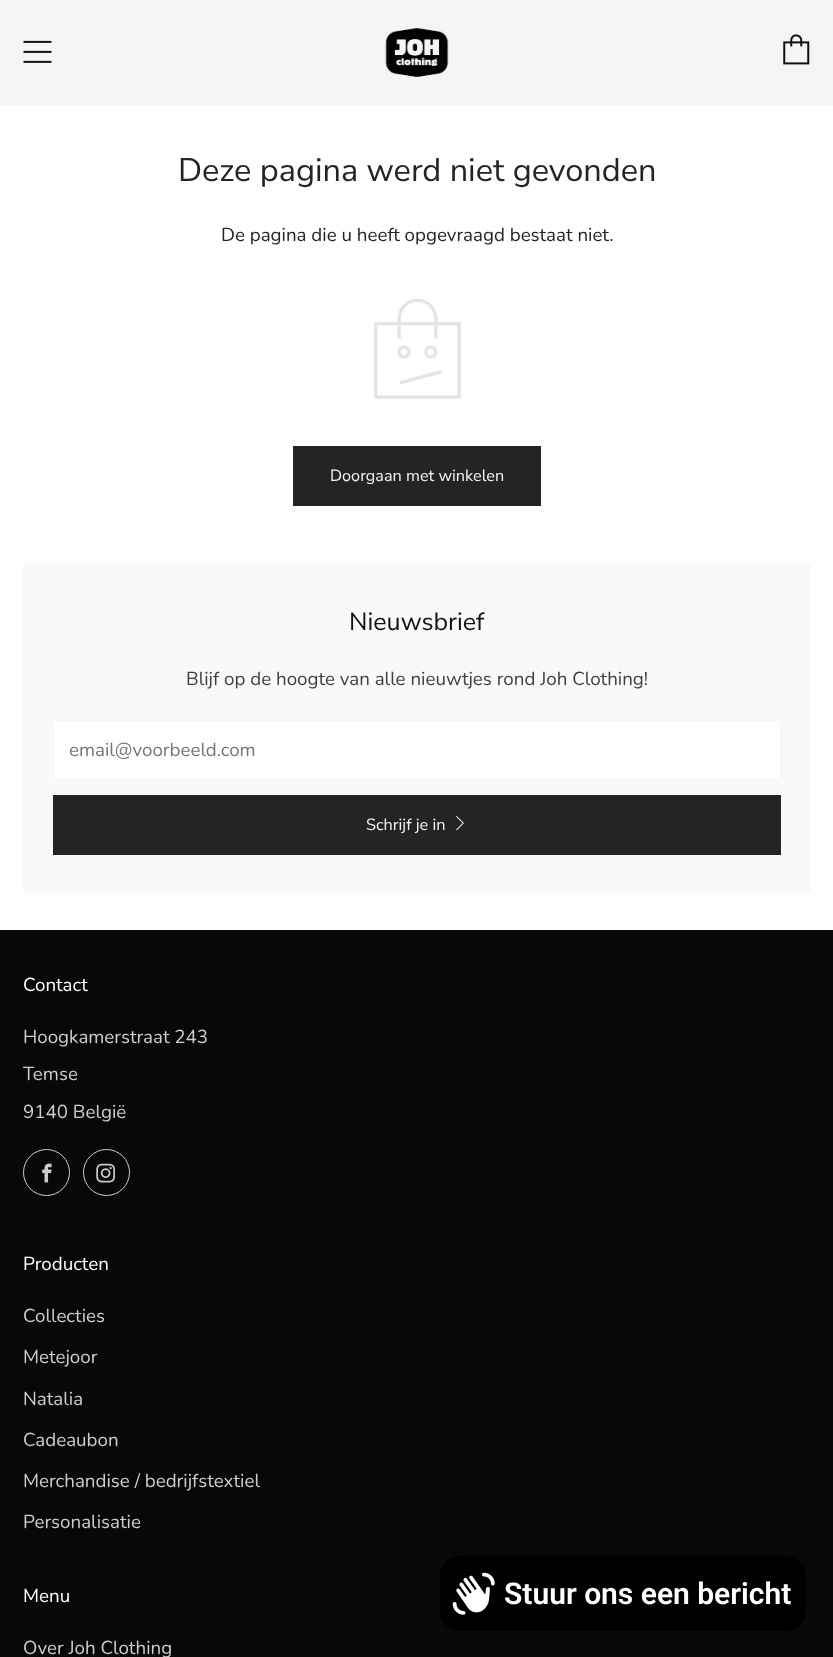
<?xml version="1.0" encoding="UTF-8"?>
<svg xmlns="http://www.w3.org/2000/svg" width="833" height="1657">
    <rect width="100%" height="100%" fill="#FFFFFF"/>
    <rect x="0" y="0" width="833" height="105" fill="#F5F5F5"/>
    <image x="23" y="40" width="29" height="23" href="img_01.png"/>
    <image x="385" y="27" width="64" height="51" href="img_02.png"/>
    <image x="783" y="34" width="27" height="31" href="img_03.png"/>
    <text x="178" y="181" font-family="Nunito Sans" font-size="32.5" fill="#262323">Deze pagina werd niet gevonden</text>
    <text x="221" y="241" font-family="Nunito" font-size="18.75" fill="#262323">De pagina die u heeft opgevraagd bestaat niet.</text>
    <image x="374" y="298" width="87" height="101" href="img_04.png"/>
    <rect x="293" y="446" width="248" height="60" fill="#262323"/>
    <text x="330" y="481" font-family="Nunito Sans" font-size="16.25" fill="#F5F5F5">Doorgaan met winkelen</text>
    <rect x="23" y="563" width="788" height="330" fill="#F9F9F9"/>
    <text x="349" y="630" font-family="Nunito Sans" font-size="25" fill="#111111">Nieuwsbrief</text>
    <text x="186" y="685" font-family="Nunito" font-size="18.75" fill="#3F3F3F">Blijf op de hoogte van alle nieuwtjes rond Joh Clothing!</text>
    <rect x="53.5" y="720.5" width="727" height="59" fill="#FFFFFF" stroke="#F5F5F5"/>
    <text x="69" y="756" font-family="Nunito" font-size="18.75" fill="#757575">email@voorbeeld.com</text>
    <rect x="53" y="795" width="728" height="60" fill="#262323"/>
    <text x="366" y="830" font-family="Nunito Sans" font-size="16.25" fill="#F5F5F5">Schrijf je in</text>
    <image x="456" y="816" width="8" height="15" href="img_05.png"/>
    <rect x="0" y="930" width="833" height="727" fill="#080808"/>
    <text x="23" y="991" font-family="Nunito Sans" font-size="18.75" fill="#FFFFFF">Contact</text>
    <text font-family="Nunito" font-size="18.75" fill="#CECECE">
        <tspan x="23" y="1043">Hoogkamerstraat 243</tspan>
        <tspan x="23" y="1080">Temse</tspan>
    </text>
    <text x="23" y="1118" font-family="Nunito" font-size="18.75" fill="#CECECE">9140 België</text>
    <circle cx="46.5" cy="1172.5" r="23" fill="none" stroke="#CECECE"/>
    <image x="42" y="1163" width="10" height="20" href="img_06.png"/>
    <circle cx="106.5" cy="1172.5" r="23" fill="none" stroke="#CECECE"/>
    <image x="96" y="1163" width="19" height="20" href="img_07.png"/>
    <text x="23" y="1270" font-family="Nunito Sans" font-size="18.75" fill="#FFFFFF">Producten</text>
    <text x="23" y="1322" font-family="Nunito" font-size="18.75" fill="#CECECE">Collecties</text>
    <text x="23" y="1363" font-family="Nunito" font-size="18.75" fill="#CECECE">Metejoor</text>
    <text x="23" y="1405" font-family="Nunito" font-size="18.75" fill="#CECECE">Natalia</text>
    <text x="23" y="1446" font-family="Nunito" font-size="18.75" fill="#CECECE">Cadeaubon</text>
    <text x="23" y="1487" font-family="Nunito" font-size="18.75" fill="#CECECE">Merchandise / bedrijfstextiel</text>
    <text x="23" y="1528" font-family="Nunito" font-size="18.75" fill="#CECECE">Personalisatie</text>
    <text x="23" y="1602" font-family="Nunito Sans" font-size="18.75" fill="#FFFFFF">Menu</text>
    <text x="23" y="1654" font-family="Nunito" font-size="18.75" fill="#CECECE">Over Joh Clothing</text>
    <rect x="440" y="1556" width="366" height="75" rx="20" fill="#000000"/>
    <image x="452" y="1572" width="43" height="43" href="img_08.png"/>
    <text x="504" y="1604" font-family="Roboto" font-size="30" font-weight="600" fill="#FFFFFF">Stuur ons een bericht</text>
</svg>
